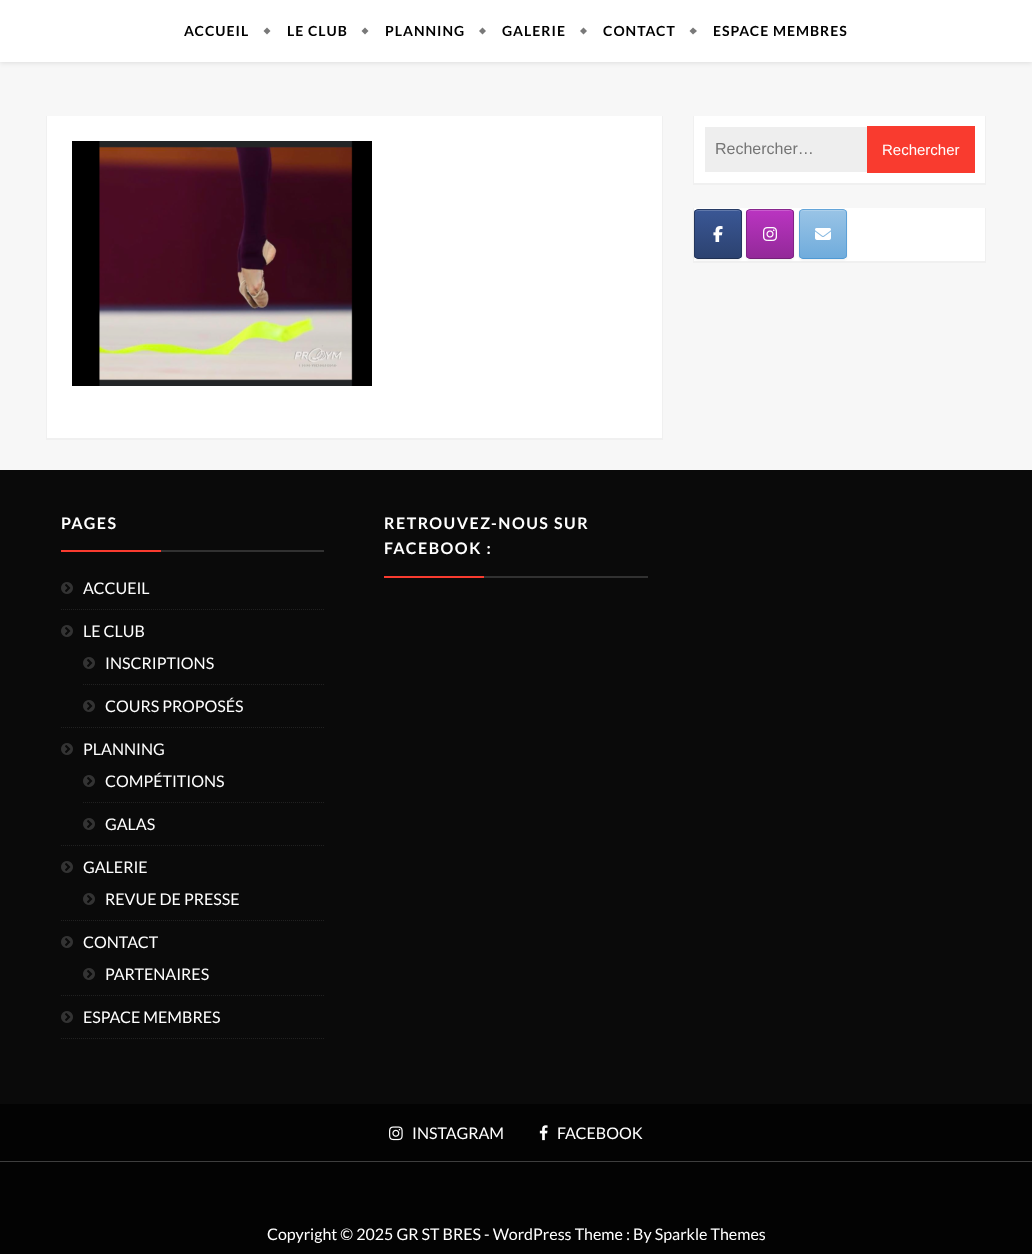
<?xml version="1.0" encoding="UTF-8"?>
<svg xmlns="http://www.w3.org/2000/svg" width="1032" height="1254">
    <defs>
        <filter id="blur1" x="-50%" y="-200%" width="200%" height="500%"><feGaussianBlur stdDeviation="2.5"/></filter>
        <filter id="blur2" x="-50%" y="-200%" width="200%" height="500%"><feGaussianBlur stdDeviation="1"/></filter>
        <clipPath id="clip1"><rect x="694" y="209" width="48" height="50" rx="4"/></clipPath>
        <linearGradient id="g1" gradientUnits="userSpaceOnUse" x1="695" y1="258" x2="695" y2="210"><stop offset="0" stop-color="#2C4270"/><stop offset="1" stop-color="#3A5795"/></linearGradient>
        <clipPath id="clip2"><rect x="746" y="209" width="48" height="50" rx="4"/></clipPath>
        <linearGradient id="g2" gradientUnits="userSpaceOnUse" x1="747" y1="258" x2="747" y2="210"><stop offset="0" stop-color="#932999"/><stop offset="1" stop-color="#BA34C1"/></linearGradient>
        <clipPath id="clip3"><rect x="799" y="209" width="48" height="50" rx="4"/></clipPath>
        <linearGradient id="g3" gradientUnits="userSpaceOnUse" x1="800" y1="258" x2="800" y2="210"><stop offset="0" stop-color="#70ACDC"/><stop offset="1" stop-color="#99C4E6"/></linearGradient>
    </defs>
    <rect width="100%" height="100%" fill="#F7F7F7"/>
    <rect x="0" y="1" width="1032" height="62" fill="#000000" fill-opacity="0.1" filter="url(#blur1)"/>
    <rect x="0" y="0" width="1032" height="62" fill="#FFFFFF"/>
    <text x="184" y="36" font-family="Lato" font-size="14" font-weight="700" letter-spacing="1" fill="#000000">ACCUEIL</text>
    <path d="M 263.5 31 L 267 27.5 L 270.5 31 L 267 34.5 Z" fill="#797979"/>
    <text x="287" y="36" font-family="Lato" font-size="14" font-weight="700" letter-spacing="1" fill="#000000">LE CLUB</text>
    <path d="M 361.5 31 L 365 27.5 L 368.5 31 L 365 34.5 Z" fill="#797979"/>
    <text x="385" y="36" font-family="Lato" font-size="14" font-weight="700" letter-spacing="1" fill="#000000">PLANNING</text>
    <path d="M 479 31 L 482.5 27.5 L 486 31 L 482.5 34.5 Z" fill="#797979"/>
    <text x="502" y="36" font-family="Lato" font-size="14" font-weight="700" letter-spacing="1" fill="#000000">GALERIE</text>
    <path d="M 580 31 L 583.5 27.5 L 587 31 L 583.5 34.5 Z" fill="#797979"/>
    <text x="603" y="36" font-family="Lato" font-size="14" font-weight="700" letter-spacing="1" fill="#000000">CONTACT</text>
    <path d="M 689.5 31 L 693 27.5 L 697 31 L 693 34.5 Z" fill="#797979"/>
    <text x="713" y="36" font-family="Lato" font-size="14" font-weight="700" letter-spacing="1" fill="#000000">ESPACE MEMBRES</text>
    <rect x="46" y="439" width="617" height="1" fill="#F0F0F0"/>
    <rect x="47" y="116" width="615" height="322" fill="#FFFFFF"/>
    <rect x="662" y="116" width="1" height="323" fill="#F0F0F0"/>
    <rect x="46" y="438" width="617" height="1" fill="#F0F0F0"/>
    <rect x="46" y="116" width="1" height="323" fill="#F0F0F0"/>
    <image x="72" y="141" width="300" height="245" href="img_01.png"/>
    <rect x="693" y="184" width="293" height="1" fill="#F0F0F0"/>
    <rect x="694" y="116" width="291" height="67" fill="#FFFFFF"/>
    <rect x="985" y="116" width="1" height="68" fill="#F0F0F0"/>
    <rect x="693" y="183" width="293" height="1" fill="#F0F0F0"/>
    <rect x="693" y="116" width="1" height="68" fill="#F0F0F0"/>
    <rect x="705" y="127" width="162" height="45" fill="#EEEEEE"/>
    <text x="715" y="154" font-family="Liberation Sans" font-size="16" fill="#757575">Rechercher…</text>
    <rect x="867" y="126" width="108" height="47" fill="#F93B2F"/>
    <text x="882" y="155" font-family="Liberation Sans" font-size="15" fill="#FFFFFF">Rechercher</text>
    <rect x="693" y="262" width="293" height="1" fill="#F0F0F0"/>
    <rect x="694" y="208" width="291" height="53" fill="#FFFFFF"/>
    <rect x="985" y="208" width="1" height="54" fill="#F0F0F0"/>
    <rect x="693" y="261" width="293" height="1" fill="#F0F0F0"/>
    <rect x="693" y="208" width="1" height="54" fill="#F0F0F0"/>
    <rect x="694" y="210" width="48" height="50" rx="4" fill="#000000" fill-opacity="0.07" filter="url(#blur2)"/>
    <g clip-path="url(#clip1)">
        <rect x="694" y="210" width="48" height="48" fill="url(#g1)"/>
    </g>
    <path d="M 698 211 H 738 C 740 211 741 212 741 214 C 741 209 736 210 731 210 H 705 C 700 210 695 209 695 214 C 695 212 696 211 698 211 Z" fill="#6179AA"/>
    <path d="M 695.5 210.5 C 696 210 697 209.5 698 209.5 H 738 C 739 209.5 740 210 740.5 210.5" fill="none" stroke="#273B65"/>
    <path d="M 740.5 210.5 C 741 211 741.5 212 741.5 213 V 255 C 741.5 256 741 257 740.5 257.5" fill="none" stroke="#25375E"/>
    <path d="M 740.5 257.5 C 740 258 739 258.5 738 258.5 H 698 C 697 258.5 696 258 695.5 257.5" fill="none" stroke="#203053"/>
    <path d="M 695.5 257.5 C 695 257 694.5 256 694.5 255 V 213 C 694.5 212 695 211 695.5 210.5" fill="none" stroke="#25375E"/>
    <image x="713" y="226" width="10" height="16" href="img_02.png"/>
    <rect x="746" y="210" width="48" height="50" rx="4" fill="#000000" fill-opacity="0.07" filter="url(#blur2)"/>
    <g clip-path="url(#clip2)">
        <rect x="746" y="210" width="48" height="48" fill="url(#g2)"/>
    </g>
    <path d="M 750 211 H 790 C 792 211 793 212 793 214 C 793 209 788 210 783 210 H 757 C 752 210 747 209 747 214 C 747 212 748 211 750 211 Z" fill="#C85DCD"/>
    <path d="M 747.5 210.5 C 748 210 749 209.5 750 209.5 H 790 C 791 209.5 792 210 792.5 210.5" fill="none" stroke="#88268D"/>
    <path d="M 792.5 210.5 C 793 211 793.5 212 793.5 213 V 255 C 793.5 256 793 257 792.5 257.5" fill="none" stroke="#802485"/>
    <path d="M 792.5 257.5 C 792 258 791 258.5 790 258.5 H 750 C 749 258.5 748 258 747.5 257.5" fill="none" stroke="#742179"/>
    <path d="M 747.5 257.5 C 747 257 746.5 256 746.5 255 V 213 C 746.5 212 747 211 747.5 210.5" fill="none" stroke="#802485"/>
    <image x="763" y="227" width="14" height="14" href="img_03.png"/>
    <rect x="799" y="210" width="48" height="50" rx="4" fill="#000000" fill-opacity="0.07" filter="url(#blur2)"/>
    <g clip-path="url(#clip3)">
        <rect x="799" y="210" width="48" height="48" fill="url(#g3)"/>
    </g>
    <path d="M 803 211 H 843 C 845 211 846 212 846 214 C 846 209 841 210 836 210 H 810 C 805 210 800 209 800 214 C 800 212 801 211 803 211 Z" fill="#ADD0EB"/>
    <path d="M 800.5 210.5 C 801 210 802 209.5 803 209.5 H 843 C 844 209.5 845 210 845.5 210.5" fill="none" stroke="#64A5D9"/>
    <path d="M 845.5 210.5 C 846 211 846.5 212 846.5 213 V 255 C 846.5 256 846 257 845.5 257.5" fill="none" stroke="#5CA0D7"/>
    <path d="M 845.5 257.5 C 845 258 844 258.5 843 258.5 H 803 C 802 258.5 801 258 800.5 257.5" fill="none" stroke="#4F99D4"/>
    <path d="M 800.5 257.5 C 800 257 799.5 256 799.5 255 V 213 C 799.5 212 800 211 800.5 210.5" fill="none" stroke="#5CA0D7"/>
    <image x="815" y="228" width="16" height="12" href="img_04.png"/>
    <rect x="0" y="470" width="1032" height="634" fill="#0A0A0A"/>
    <rect x="161" y="550" width="163" height="2" fill="#313131"/>
    <text x="61" y="529" font-family="Lato" font-size="16" font-weight="700" letter-spacing="1.5" fill="#FFFFFF">PAGES</text>
    <rect x="61" y="550" width="100" height="2" fill="#F93B2F"/>
    <path d="M 61 609.5 H 324" fill="none" stroke="#212121" stroke-dasharray="1 1"/>
    <image x="61" y="582" width="12" height="12" href="img_05.png"/>
    <text x="83" y="594" font-family="Lato" font-size="16" fill="#FFFFFF">ACCUEIL</text>
    <path d="M 61 727.5 H 324" fill="none" stroke="#212121" stroke-dasharray="1 1"/>
    <image x="61" y="625" width="12" height="12" href="img_05.png"/>
    <text x="83" y="637" font-family="Lato" font-size="16" fill="#FFFFFF">LE CLUB</text>
    <path d="M 83 684.5 H 324" fill="none" stroke="#212121" stroke-dasharray="1 1"/>
    <image x="83" y="657" width="12" height="12" href="img_05.png"/>
    <text x="105" y="669" font-family="Lato" font-size="16" fill="#FFFFFF">INSCRIPTIONS</text>
    <image x="83" y="700" width="12" height="12" href="img_05.png"/>
    <text x="105" y="712" font-family="Lato" font-size="16" fill="#FFFFFF">COURS PROPOSÉS</text>
    <path d="M 61 845.5 H 324" fill="none" stroke="#212121" stroke-dasharray="1 1"/>
    <image x="61" y="743" width="12" height="12" href="img_05.png"/>
    <text x="83" y="755" font-family="Lato" font-size="16" fill="#FFFFFF">PLANNING</text>
    <path d="M 83 802.5 H 324" fill="none" stroke="#212121" stroke-dasharray="1 1"/>
    <image x="83" y="775" width="12" height="12" href="img_05.png"/>
    <text x="105" y="787" font-family="Lato" font-size="16" fill="#FFFFFF">COMPÉTITIONS</text>
    <image x="83" y="818" width="12" height="12" href="img_05.png"/>
    <text x="105" y="830" font-family="Lato" font-size="16" fill="#FFFFFF">GALAS</text>
    <path d="M 61 920.5 H 324" fill="none" stroke="#212121" stroke-dasharray="1 1"/>
    <image x="61" y="861" width="12" height="12" href="img_05.png"/>
    <text x="83" y="873" font-family="Lato" font-size="16" fill="#FFFFFF">GALERIE</text>
    <image x="83" y="893" width="12" height="12" href="img_05.png"/>
    <text x="105" y="905" font-family="Lato" font-size="16" fill="#FFFFFF">REVUE DE PRESSE</text>
    <path d="M 61 995.5 H 324" fill="none" stroke="#212121" stroke-dasharray="1 1"/>
    <image x="61" y="936" width="12" height="12" href="img_05.png"/>
    <text x="83" y="948" font-family="Lato" font-size="16" fill="#FFFFFF">CONTACT</text>
    <image x="83" y="968" width="12" height="12" href="img_05.png"/>
    <text x="105" y="980" font-family="Lato" font-size="16" fill="#FFFFFF">PARTENAIRES</text>
    <path d="M 61 1038.5 H 324" fill="none" stroke="#212121" stroke-dasharray="1 1"/>
    <image x="61" y="1011" width="12" height="12" href="img_05.png"/>
    <text x="83" y="1023" font-family="Lato" font-size="16" fill="#FFFFFF">ESPACE MEMBRES</text>
    <rect x="484" y="576" width="164" height="2" fill="#313131"/>
    <text font-family="Lato" font-size="16" font-weight="700" letter-spacing="1.5" fill="#FFFFFF">
        <tspan x="384" y="529">RETROUVEZ-NOUS SUR</tspan>
        <tspan x="384" y="554">FACEBOOK :</tspan>
    </text>
    <rect x="384" y="576" width="100" height="2" fill="#F93B2F"/>
    <rect x="0" y="1104" width="1032" height="57" fill="#030303"/>
    <rect x="0" y="1161" width="1032" height="1" fill="#3E3E3E"/>
    <image x="389" y="1126" width="14" height="15" href="img_06.png"/>
    <text x="412" y="1139" font-family="Lato" font-size="16" fill="#FFFFFF">INSTAGRAM</text>
    <image x="539" y="1125" width="9" height="16" href="img_07.png"/>
    <text x="557" y="1139" font-family="Lato" font-size="16" fill="#FFFFFF">FACEBOOK</text>
    <rect x="0" y="1162" width="1032" height="92" fill="#030303"/>
    <text x="267" y="1240" font-family="Lato" font-size="16" fill="#FFFFFF">Copyright © 2025 GR ST BRES - WordPress Theme : By Sparkle Themes</text>
</svg>
